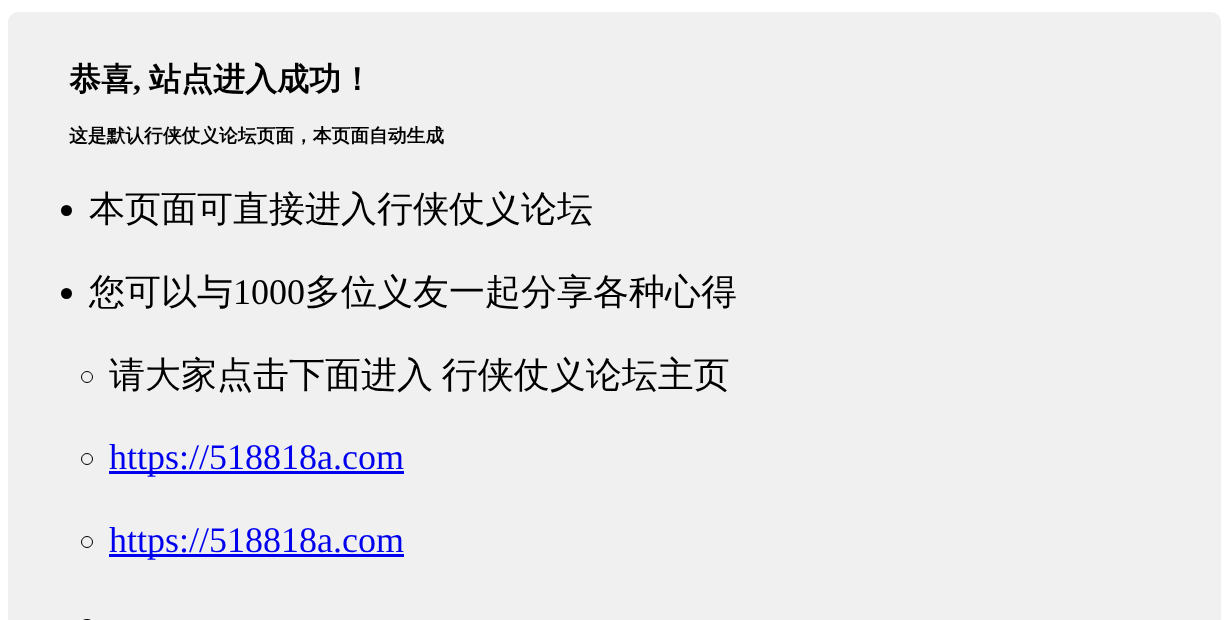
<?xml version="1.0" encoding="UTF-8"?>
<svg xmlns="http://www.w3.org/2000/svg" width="1229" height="620">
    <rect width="100%" height="100%" fill="#FFFFFF"/>
    <rect x="8" y="12" width="1213" height="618" rx="10" fill="#F0F0F0"/>
    <text x="69" y="90" font-family="WenQuanYi Zen Hei" font-size="32" font-weight="700" fill="#000000">恭喜</text>
    <text x="133" y="90" font-family="Liberation Serif" font-size="32" font-weight="700" fill="#000000">,</text>
    <text x="149" y="90" font-family="WenQuanYi Zen Hei" font-size="32" font-weight="700" fill="#000000">站点进入成功！</text>
    <text x="69" y="142" font-family="WenQuanYi Zen Hei" font-size="18.75" font-weight="700" fill="#000000">这是默认行侠仗义论坛页面，本页面自动生成</text>
    <circle cx="66.5" cy="210.5" r="5.5" fill="#000000"/>
    <text x="89" y="221" font-family="WenQuanYi Zen Hei" font-size="36" font-weight="500" fill="#000000">本页面可直接进入行侠仗义论坛</text>
    <circle cx="66.5" cy="293.5" r="5.5" fill="#000000"/>
    <text x="89" y="304" font-family="WenQuanYi Zen Hei" font-size="36" font-weight="500" fill="#000000">您可以与</text>
    <text x="233" y="304" font-family="Liberation Serif" font-size="36" fill="#000000">1000</text>
    <text x="305" y="304" font-family="WenQuanYi Zen Hei" font-size="36" font-weight="500" fill="#000000">多位义友一起分享各种心得</text>
    <circle cx="87" cy="377" r="5.5" fill="none" stroke="#000000"/>
    <text x="109" y="387" word-spacing="-2" font-family="WenQuanYi Zen Hei" font-size="36" font-weight="500" fill="#000000">请大家点击下面进入 行侠仗义论坛主页</text>
    <circle cx="87" cy="459" r="5.5" fill="none" stroke="#000000"/>
    <rect x="109" y="471" width="295" height="3" fill="#0000EE"/>
    <text x="109" y="469" font-family="Liberation Serif" font-size="36" fill="#0000EE">https://518818a.com</text>
    <circle cx="87" cy="542" r="5.5" fill="none" stroke="#000000"/>
    <rect x="109" y="554" width="295" height="3" fill="#0000EE"/>
    <text x="109" y="552" font-family="Liberation Serif" font-size="36" fill="#0000EE">https://518818a.com</text>
    <rect x="81.5" y="619.5" width="11" height="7" rx="5.5" fill="none" stroke="#000000"/>
</svg>
